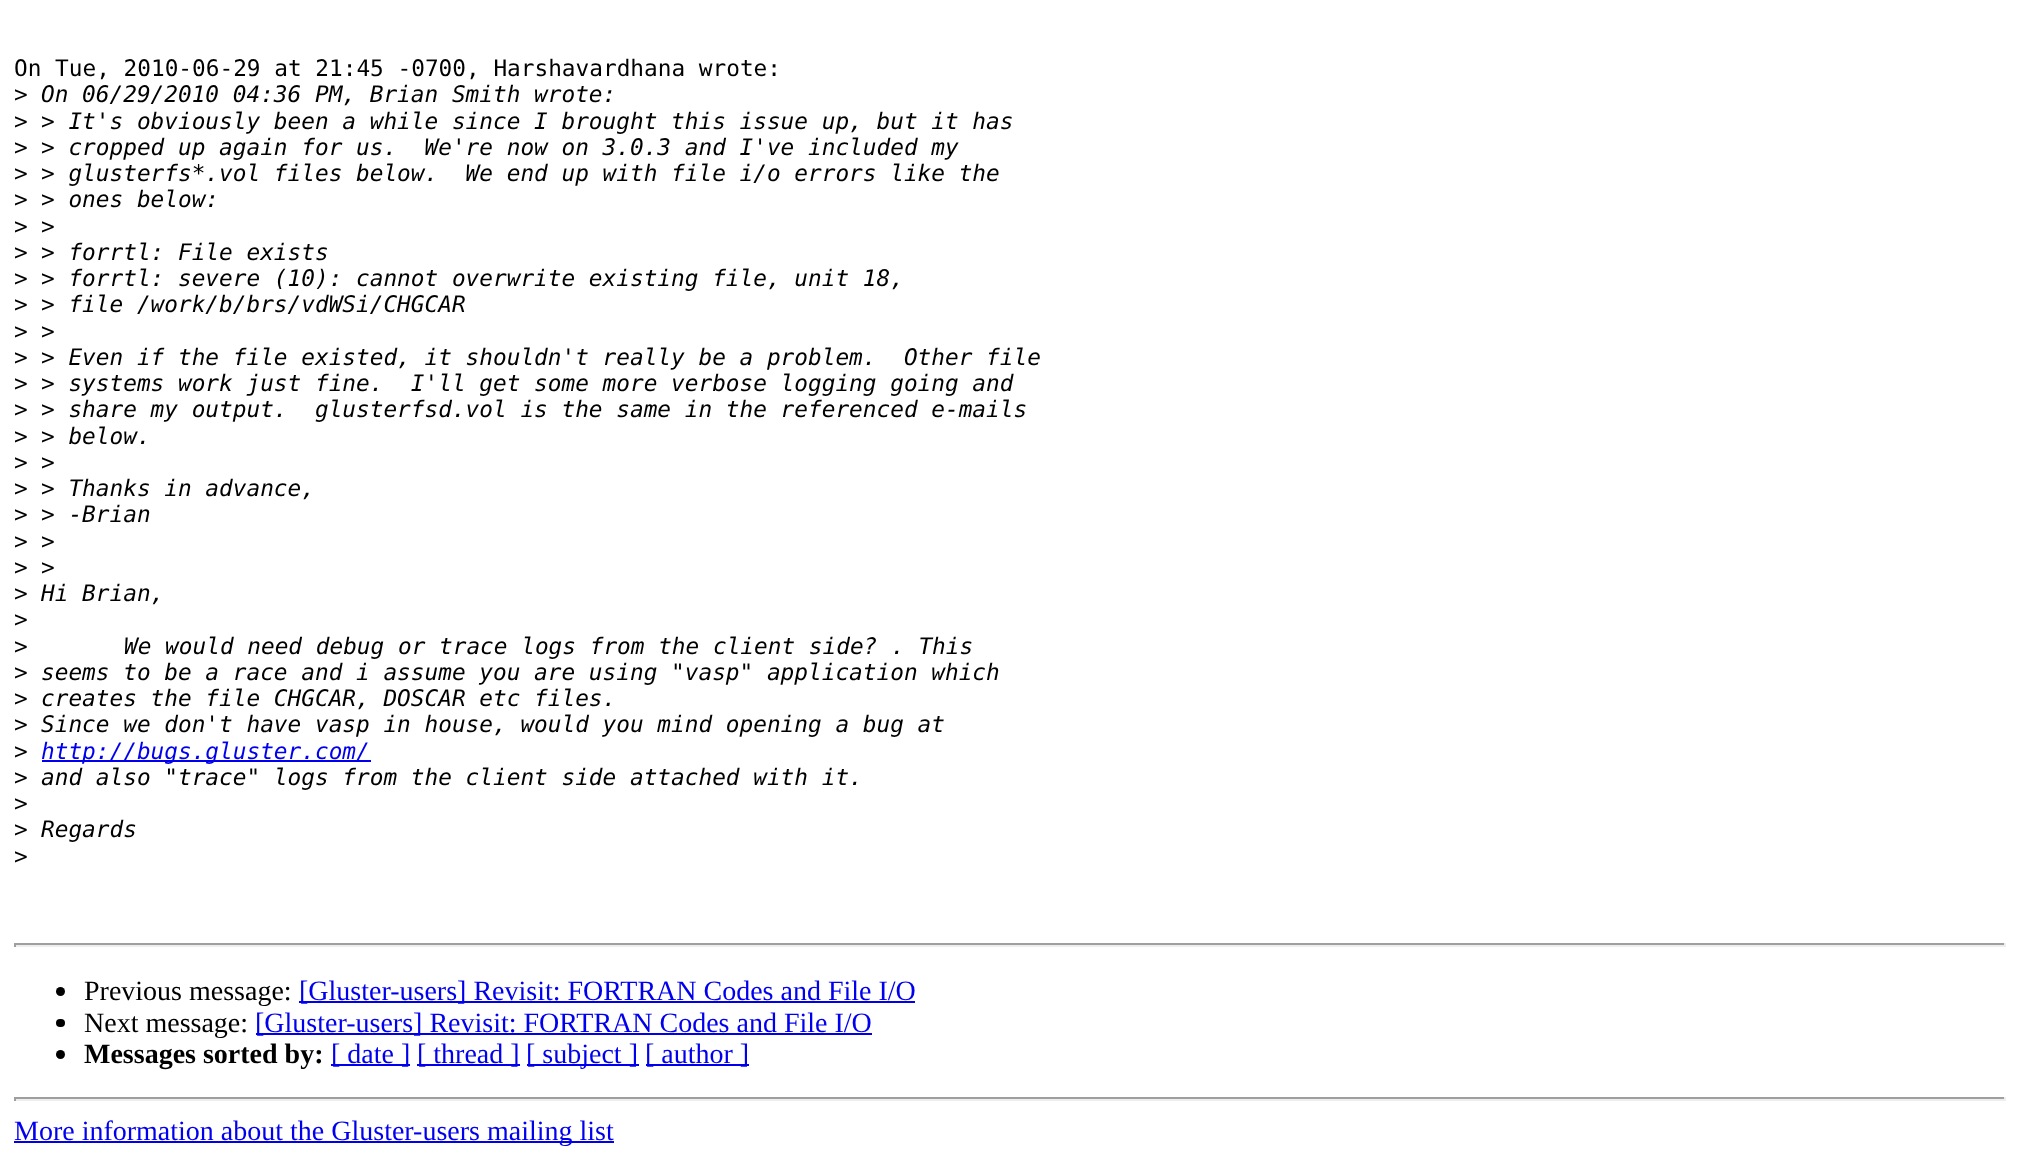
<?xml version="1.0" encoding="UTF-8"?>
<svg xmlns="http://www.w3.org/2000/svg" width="2019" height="1160">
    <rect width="100%" height="100%" fill="#FFFFFF"/>
    <text font-family="DejaVu Sans Mono" font-size="22.75" fill="#000000">
        <tspan x="14" y="76">On Tue, 2010-06-29 at 21:45 -0700, Harshavardhana wrote:</tspan>
        <tspan x="14" y="102">&gt;</tspan>
    </text>
    <text x="41" y="102" font-family="DejaVu Sans Mono" font-size="22.75" font-style="italic" fill="#000000">On 06/29/2010 04:36 PM, Brian Smith wrote:</text>
    <text x="14" y="129" font-family="DejaVu Sans Mono" font-size="22.75" fill="#000000">&gt;</text>
    <text x="41" y="129" font-family="DejaVu Sans Mono" font-size="22.75" font-style="italic" fill="#000000">&gt; It's obviously been a while since I brought this issue up, but it has</text>
    <text x="14" y="155" font-family="DejaVu Sans Mono" font-size="22.75" fill="#000000">&gt;</text>
    <text x="41" y="155" font-family="DejaVu Sans Mono" font-size="22.75" font-style="italic" fill="#000000" xml:space="preserve">&gt; cropped up again for us.  We're now on 3.0.3 and I've included my</text>
    <text x="14" y="181" font-family="DejaVu Sans Mono" font-size="22.75" fill="#000000">&gt;</text>
    <text x="41" y="181" font-family="DejaVu Sans Mono" font-size="22.75" font-style="italic" fill="#000000" xml:space="preserve">&gt; glusterfs*.vol files below.  We end up with file i/o errors like the</text>
    <text x="14" y="207" font-family="DejaVu Sans Mono" font-size="22.75" fill="#000000">&gt;</text>
    <text x="41" y="207" font-family="DejaVu Sans Mono" font-size="22.75" font-style="italic" fill="#000000">&gt; ones below:</text>
    <text x="14" y="234" font-family="DejaVu Sans Mono" font-size="22.75" fill="#000000">&gt;</text>
    <text x="41" y="234" font-family="DejaVu Sans Mono" font-size="22.75" font-style="italic" fill="#000000">&gt;</text>
    <text x="14" y="260" font-family="DejaVu Sans Mono" font-size="22.75" fill="#000000">&gt;</text>
    <text x="41" y="260" font-family="DejaVu Sans Mono" font-size="22.75" font-style="italic" fill="#000000">&gt; forrtl: File exists</text>
    <text x="14" y="286" font-family="DejaVu Sans Mono" font-size="22.75" fill="#000000">&gt;</text>
    <text x="41" y="286" font-family="DejaVu Sans Mono" font-size="22.75" font-style="italic" fill="#000000">&gt; forrtl: severe (10): cannot overwrite existing file, unit 18,</text>
    <text x="14" y="312" font-family="DejaVu Sans Mono" font-size="22.75" fill="#000000">&gt;</text>
    <text x="41" y="312" font-family="DejaVu Sans Mono" font-size="22.75" font-style="italic" fill="#000000">&gt; file /work/b/brs/vdWSi/CHGCAR</text>
    <text x="14" y="339" font-family="DejaVu Sans Mono" font-size="22.75" fill="#000000">&gt;</text>
    <text x="41" y="339" font-family="DejaVu Sans Mono" font-size="22.75" font-style="italic" fill="#000000">&gt;</text>
    <text x="14" y="365" font-family="DejaVu Sans Mono" font-size="22.75" fill="#000000">&gt;</text>
    <text x="41" y="365" font-family="DejaVu Sans Mono" font-size="22.75" font-style="italic" fill="#000000" xml:space="preserve">&gt; Even if the file existed, it shouldn't really be a problem.  Other file</text>
    <text x="14" y="391" font-family="DejaVu Sans Mono" font-size="22.75" fill="#000000">&gt;</text>
    <text x="41" y="391" font-family="DejaVu Sans Mono" font-size="22.75" font-style="italic" fill="#000000" xml:space="preserve">&gt; systems work just fine.  I'll get some more verbose logging going and</text>
    <text x="14" y="417" font-family="DejaVu Sans Mono" font-size="22.75" fill="#000000">&gt;</text>
    <text x="41" y="417" font-family="DejaVu Sans Mono" font-size="22.75" font-style="italic" fill="#000000" xml:space="preserve">&gt; share my output.  glusterfsd.vol is the same in the referenced e-mails</text>
    <text x="14" y="444" font-family="DejaVu Sans Mono" font-size="22.75" fill="#000000">&gt;</text>
    <text x="41" y="444" font-family="DejaVu Sans Mono" font-size="22.75" font-style="italic" fill="#000000">&gt; below.</text>
    <text x="14" y="470" font-family="DejaVu Sans Mono" font-size="22.75" fill="#000000">&gt;</text>
    <text x="41" y="470" font-family="DejaVu Sans Mono" font-size="22.75" font-style="italic" fill="#000000">&gt;</text>
    <text x="14" y="496" font-family="DejaVu Sans Mono" font-size="22.75" fill="#000000">&gt;</text>
    <text x="41" y="496" font-family="DejaVu Sans Mono" font-size="22.75" font-style="italic" fill="#000000">&gt; Thanks in advance,</text>
    <text x="14" y="522" font-family="DejaVu Sans Mono" font-size="22.75" fill="#000000">&gt;</text>
    <text x="41" y="522" font-family="DejaVu Sans Mono" font-size="22.75" font-style="italic" fill="#000000">&gt; -Brian</text>
    <text x="14" y="549" font-family="DejaVu Sans Mono" font-size="22.75" fill="#000000">&gt;</text>
    <text x="41" y="549" font-family="DejaVu Sans Mono" font-size="22.75" font-style="italic" fill="#000000">&gt;</text>
    <text x="14" y="575" font-family="DejaVu Sans Mono" font-size="22.75" fill="#000000">&gt;</text>
    <text x="41" y="575" font-family="DejaVu Sans Mono" font-size="22.75" font-style="italic" fill="#000000">&gt;</text>
    <text x="14" y="601" font-family="DejaVu Sans Mono" font-size="22.75" fill="#000000">&gt;</text>
    <text x="41" y="601" font-family="DejaVu Sans Mono" font-size="22.75" font-style="italic" fill="#000000">Hi Brian,</text>
    <text font-family="DejaVu Sans Mono" font-size="22.75" fill="#000000">
        <tspan x="14" y="627">&gt;</tspan>
        <tspan x="14" y="654">&gt;</tspan>
    </text>
    <text x="124" y="654" font-family="DejaVu Sans Mono" font-size="22.75" font-style="italic" fill="#000000">We would need debug or trace logs from the client side? . This</text>
    <text x="14" y="680" font-family="DejaVu Sans Mono" font-size="22.75" fill="#000000">&gt;</text>
    <text x="41" y="680" font-family="DejaVu Sans Mono" font-size="22.75" font-style="italic" fill="#000000">seems to be a race and i assume you are using "vasp" application which</text>
    <text x="14" y="706" font-family="DejaVu Sans Mono" font-size="22.75" fill="#000000">&gt;</text>
    <text x="41" y="706" font-family="DejaVu Sans Mono" font-size="22.75" font-style="italic" fill="#000000">creates the file CHGCAR, DOSCAR etc files.</text>
    <text x="14" y="732" font-family="DejaVu Sans Mono" font-size="22.75" fill="#000000">&gt;</text>
    <text x="41" y="732" font-family="DejaVu Sans Mono" font-size="22.75" font-style="italic" fill="#000000">Since we don't have vasp in house, would you mind opening a bug at</text>
    <text x="14" y="759" font-family="DejaVu Sans Mono" font-size="22.75" fill="#000000">&gt;</text>
    <rect x="42" y="760" width="329" height="2" fill="#0000EE"/>
    <text x="41" y="759" font-family="DejaVu Sans Mono" font-size="22.75" font-style="italic" fill="#0000EE">http://bugs.gluster.com/</text>
    <text x="14" y="785" font-family="DejaVu Sans Mono" font-size="22.75" fill="#000000">&gt;</text>
    <text x="41" y="785" font-family="DejaVu Sans Mono" font-size="22.75" font-style="italic" fill="#000000">and also "trace" logs from the client side attached with it.</text>
    <text font-family="DejaVu Sans Mono" font-size="22.75" fill="#000000">
        <tspan x="14" y="811">&gt;</tspan>
        <tspan x="14" y="837">&gt;</tspan>
    </text>
    <text x="41" y="837" font-family="DejaVu Sans Mono" font-size="22.75" font-style="italic" fill="#000000">Regards</text>
    <text x="14" y="864" font-family="DejaVu Sans Mono" font-size="22.75" fill="#000000">&gt;</text>
    <rect x="14" y="943" width="1992" height="2" fill="#9F9F9F"/>
    <rect x="2004" y="943" width="2" height="4" fill="#EEEEEE"/>
    <rect x="14" y="945" width="1992" height="2" fill="#EEEEEE"/>
    <rect x="14" y="943" width="2" height="4" fill="#9F9F9F"/>
    <circle cx="60.5" cy="991.5" r="4.5" fill="#000000"/>
    <text x="84" y="1000" font-family="Liberation Serif" font-size="28" fill="#000000">Previous message:</text>
    <rect x="299" y="1001" width="616" height="2" fill="#0000EE"/>
    <text x="299" y="1000" font-family="Liberation Serif" font-size="28" fill="#0000EE">[Gluster-users] Revisit: FORTRAN Codes and File I/O</text>
    <rect x="56" y="1019" width="9" height="8" rx="4" fill="#000000"/>
    <text x="84" y="1032" font-family="Liberation Serif" font-size="28" fill="#000000">Next message:</text>
    <rect x="256" y="1033" width="616" height="2" fill="#0000EE"/>
    <text x="255" y="1032" font-family="Liberation Serif" font-size="28" fill="#0000EE">[Gluster-users] Revisit: FORTRAN Codes and File I/O</text>
    <circle cx="60.5" cy="1054.5" r="4.5" fill="#000000"/>
    <text x="84" y="1063" font-family="Liberation Serif" font-size="28" font-weight="700" fill="#000000">Messages sorted by:</text>
    <rect x="331" y="1064" width="79" height="2" fill="#0000EE"/>
    <text x="331" y="1063" font-family="Liberation Serif" font-size="28" fill="#0000EE">[ date ]</text>
    <rect x="417" y="1064" width="103" height="2" fill="#0000EE"/>
    <text x="417" y="1063" font-family="Liberation Serif" font-size="28" fill="#0000EE">[ thread ]</text>
    <rect x="527" y="1064" width="112" height="2" fill="#0000EE"/>
    <text x="526" y="1063" font-family="Liberation Serif" font-size="28" fill="#0000EE">[ subject ]</text>
    <rect x="646" y="1064" width="103" height="2" fill="#0000EE"/>
    <text x="645" y="1063" font-family="Liberation Serif" font-size="28" fill="#0000EE">[ author ]</text>
    <rect x="14" y="1097" width="1992" height="2" fill="#9F9F9F"/>
    <rect x="2004" y="1097" width="2" height="4" fill="#EEEEEE"/>
    <rect x="14" y="1099" width="1992" height="2" fill="#EEEEEE"/>
    <rect x="14" y="1097" width="2" height="4" fill="#9F9F9F"/>
    <rect x="14" y="1141" width="600" height="2" fill="#0000EE"/>
    <text x="14" y="1140" font-family="Liberation Serif" font-size="28" fill="#0000EE">More information about the Gluster-users mailing list</text>
</svg>
